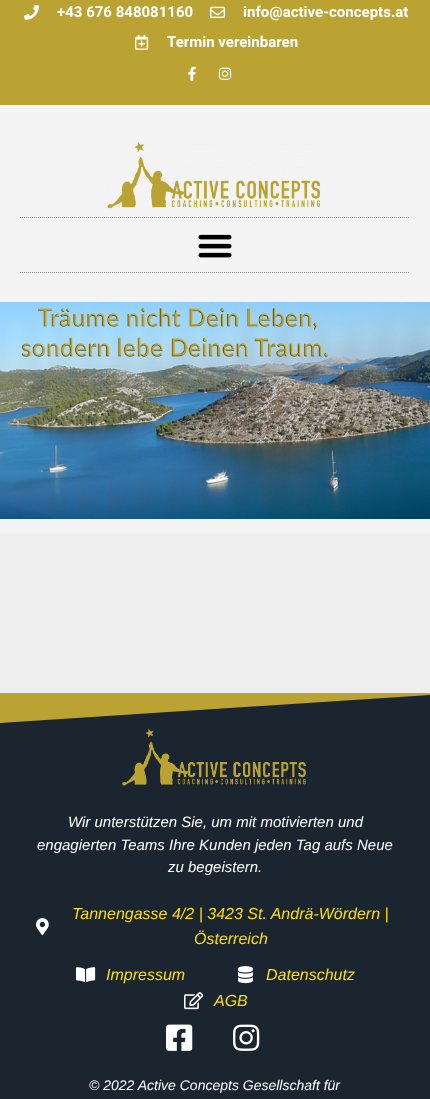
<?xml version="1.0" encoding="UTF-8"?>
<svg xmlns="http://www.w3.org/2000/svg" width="430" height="1099">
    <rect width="100%" height="100%" fill="#F4F4F4"/>
    <rect x="0" y="0" width="430" height="105" fill="#BBA333"/>
    <image x="24" y="4" width="15" height="16" href="img_01.png"/>
    <text x="57" y="17" font-family="Roboto" font-size="15" font-weight="700" fill="#FFFFFF">+43 676 848081160</text>
    <image x="210" y="6" width="15" height="12" href="img_02.png"/>
    <text x="243" y="17" font-family="Roboto" font-size="15" font-weight="700" fill="#FFFFFF">info@active-concepts.at</text>
    <image x="135" y="34" width="14" height="16" href="img_03.png"/>
    <text x="167" y="47" font-family="Roboto" font-size="15" font-weight="700" fill="#FFFFFF">Termin vereinbaren</text>
    <image x="188" y="66" width="8" height="15" href="img_04.png"/>
    <image x="218" y="67" width="14" height="13" href="img_05.png"/>
    <image x="107" y="142" width="214" height="67" href="img_06.png"/>
    <path d="M 20 217.5 H 410" fill="none" stroke="#8E8E8E" stroke-dasharray="1 1"/>
    <path d="M 20 272.5 H 410" fill="none" stroke="#8E8E8E" stroke-dasharray="1 1"/>
    <image x="198" y="234" width="34" height="24" href="img_07.png"/>
    <image x="0" y="302" width="430" height="217" href="img_08.png"/>
    <rect x="0" y="534" width="430" height="159" fill="#EEEEEE"/>
    <rect x="0" y="695" width="430" height="404" fill="#1B252F"/>
    <path d="M 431 695 V 693 H -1 V 723 Z" fill="#BBA333"/>
    <image x="122" y="728" width="184" height="58" href="img_09.png"/>
    <text x="68" y="827" font-family="Liberation Sans" font-size="15" font-style="italic" fill="#FFFFFF">Wir unterstützen Sie, um mit motivierten und</text>
    <text x="37" y="850" font-family="Liberation Sans" font-size="15" font-style="italic" fill="#FFFFFF">engagierten Teams Ihre Kunden jeden Tag aufs Neue</text>
    <text x="168" y="872" font-family="Liberation Sans" font-size="15" font-style="italic" fill="#FFFFFF">zu begeistern.</text>
    <image x="36" y="918" width="13" height="18" href="img_10.png"/>
    <text x="72" y="919" font-family="Liberation Sans" font-size="16" font-style="italic" fill="#FFDE01">Tannengasse 4/2 | 3423 St. Andrä-Wördern |</text>
    <text x="194" y="944" font-family="Liberation Sans" font-size="16" font-style="italic" fill="#FFDE01">Österreich</text>
    <image x="76" y="967" width="20" height="15" href="img_11.png"/>
    <text x="106" y="980" font-family="Liberation Sans" font-size="16" font-style="italic" fill="#FFDE01">Impressum</text>
    <image x="238" y="966" width="15" height="18" href="img_12.png"/>
    <text x="266" y="980" font-family="Liberation Sans" font-size="16" font-style="italic" fill="#FFDE01">Datenschutz</text>
    <image x="184" y="992" width="20" height="18" href="img_13.png"/>
    <text x="214" y="1006" font-family="Liberation Sans" font-size="16" font-style="italic" fill="#FFDE01">AGB</text>
    <image x="166" y="1024" width="27" height="27" href="img_14.png"/>
    <image x="233" y="1024" width="27" height="27" href="img_15.png"/>
    <text x="89" y="1090" font-family="Liberation Sans" font-size="14" font-style="italic" fill="#FFFFFF">© 2022 Active Concepts Gesellschaft für</text>
</svg>
